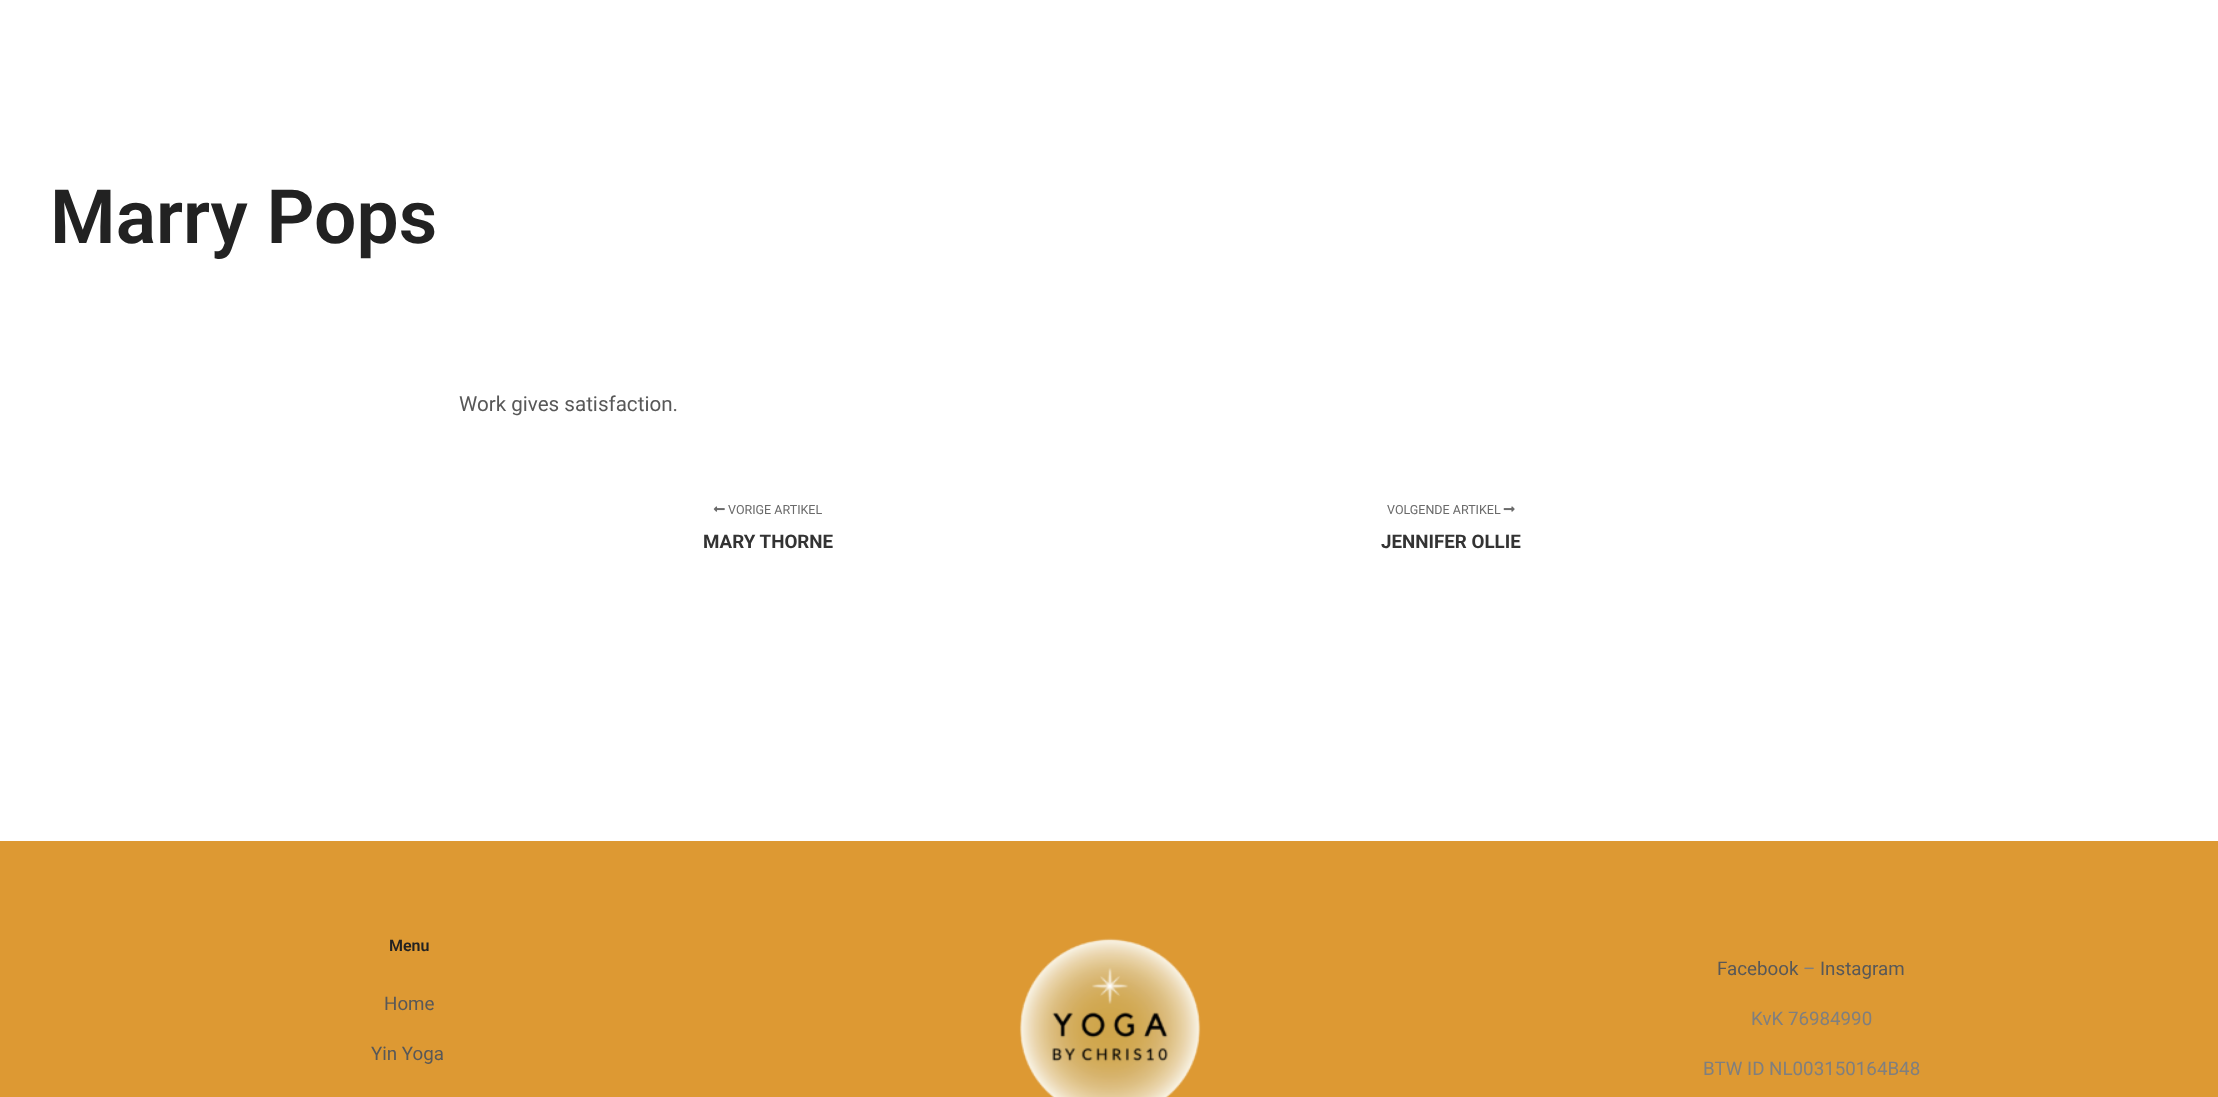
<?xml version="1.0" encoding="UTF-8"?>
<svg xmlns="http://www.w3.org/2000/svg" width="2218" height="1097">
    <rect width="100%" height="100%" fill="#FFFFFF"/>
    <text x="50" y="243" font-family="Roboto" font-size="75" font-weight="600" fill="#222222">Marry Pops</text>
    <text x="459" y="411" font-family="Roboto" font-size="20.6" fill="#585858">Work gives satisfaction.</text>
    <image x="713" y="506" width="12" height="6" href="img_01.png"/>
    <text x="728" y="514" font-family="Roboto" font-size="12.5" fill="#6A6A6A">VORIGE ARTIKEL</text>
    <text x="703" y="548" font-family="Roboto" font-size="18.75" font-weight="700" fill="#333333">MARY THORNE</text>
    <text x="1387" y="514" font-family="Roboto" font-size="12.5" fill="#6A6A6A">VOLGENDE ARTIKEL</text>
    <image x="1503" y="506" width="12" height="6" href="img_02.png"/>
    <text x="1381" y="548" font-family="Roboto" font-size="18.75" font-weight="700" fill="#333333">JENNIFER OLLIE</text>
    <rect x="0" y="841" width="2218" height="256" fill="#DD9933"/>
    <text x="389" y="951" font-family="Roboto" font-size="16" font-weight="600" fill="#222222">Menu</text>
    <text x="384" y="1010" font-family="Roboto" font-size="18.75" fill="#585858">Home</text>
    <text x="371" y="1060" font-family="Roboto" font-size="18.75" fill="#585858">Yin Yoga</text>
    <image x="1019" y="938" width="182" height="159" href="img_03.png"/>
    <text x="1717" y="975" font-family="Roboto" font-size="18.75" fill="#585858">Facebook</text>
    <text x="1803" y="975" font-family="Roboto" font-size="18.75" fill="#7F7F7F">–</text>
    <text x="1820" y="975" font-family="Roboto" font-size="18.75" fill="#585858">Instagram</text>
    <text x="1751" y="1025" font-family="Roboto" font-size="18.75" fill="#7F7F7F">KvK 76984990</text>
    <text x="1703" y="1075" font-family="Roboto" font-size="18.75" fill="#7F7F7F">BTW ID NL003150164B48</text>
</svg>
